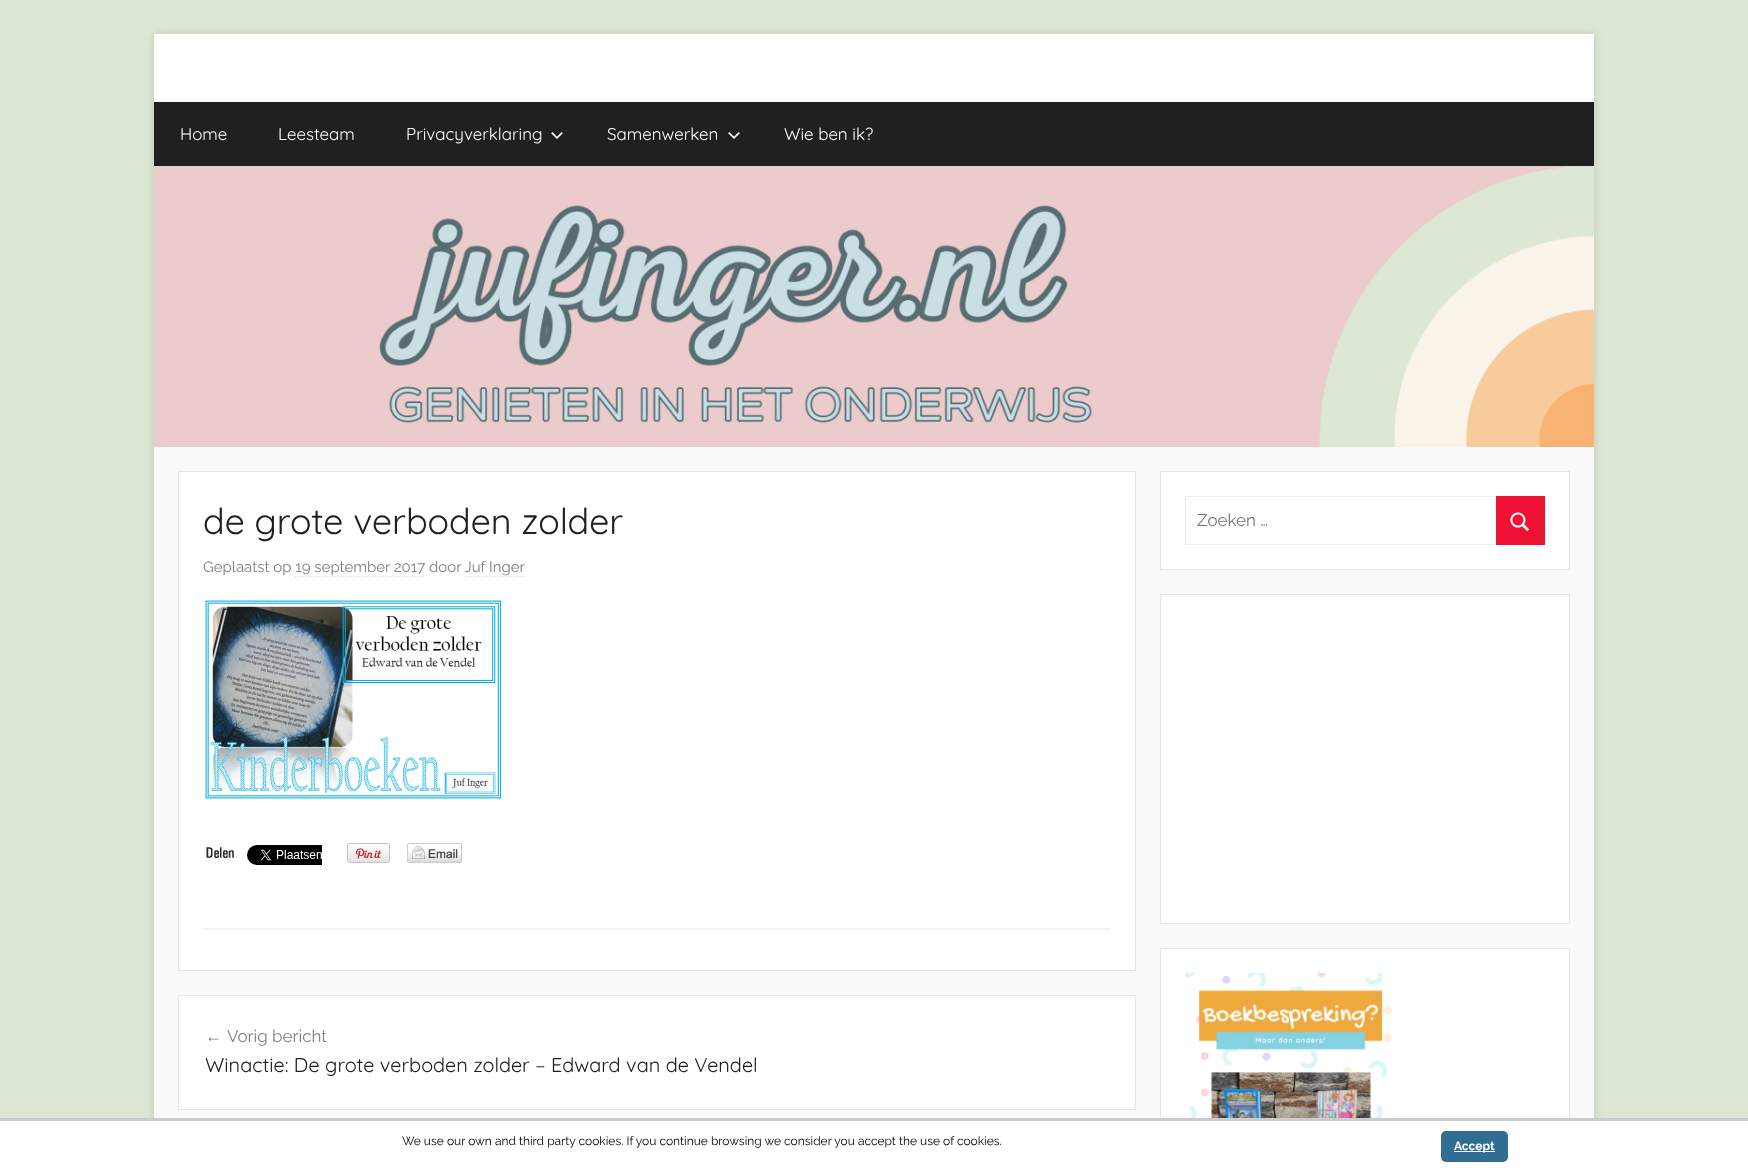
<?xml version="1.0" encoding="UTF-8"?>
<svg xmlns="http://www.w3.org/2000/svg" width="1748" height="1172">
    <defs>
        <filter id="blur1" x="-50%" y="-200%" width="200%" height="500%"><feGaussianBlur stdDeviation="5"/></filter>
    </defs>
    <rect width="100%" height="100%" fill="#DDE8D4"/>
    <rect x="154" y="34" width="1440" height="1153" fill="#000000" fill-opacity="0.15" filter="url(#blur1)"/>
    <rect x="154" y="447" width="1440" height="671" fill="#FAFAFA"/>
    <rect x="154" y="34" width="1440" height="68" fill="#FFFFFF"/>
    <rect x="154" y="102" width="1440" height="64" fill="#202020"/>
    <text x="180" y="140" font-family="Quicksand" font-size="17" font-weight="300" fill="#FFFFFF">Home</text>
    <text x="278" y="140" font-family="Quicksand" font-size="17" font-weight="300" fill="#FFFFFF">Leesteam</text>
    <text x="406" y="140" font-family="Quicksand" font-size="17" font-weight="300" fill="#FFFFFF">Privacyverklaring</text>
    <image x="551" y="132" width="12" height="7" href="img_01.png"/>
    <text x="607" y="140" font-family="Quicksand" font-size="17" font-weight="300" fill="#FFFFFF">Samenwerken</text>
    <image x="728" y="132" width="12" height="7" href="img_01.png"/>
    <text x="784" y="140" font-family="Quicksand" font-size="17" font-weight="300" fill="#FFFFFF">Wie ben ik?</text>
    <image x="154" y="166" width="1440" height="281" href="img_02.png"/>
    <rect x="178.5" y="471.5" width="957" height="499" fill="#FFFFFF" stroke="#E6E6E6"/>
    <text x="203" y="534" font-family="Quicksand" font-size="36" font-weight="300" fill="#202020">de grote verboden zolder</text>
    <text x="203" y="572" font-family="Raleway" font-size="15" font-weight="100" fill="#808080">Geplaatst op 19 september 2017 door Juf Inger</text>
    <path d="M 295 576.5 H 425" fill="none" stroke="#D9D9D9" stroke-dasharray="1 1"/>
    <path d="M 465 576.5 H 525" fill="none" stroke="#D9D9D9" stroke-dasharray="1 1"/>
    <image x="205" y="600" width="296" height="199" href="img_03.png"/>
    <image x="206" y="846" width="29" height="12" href="img_04.png"/>
    <image x="247" y="845" width="75" height="20" href="img_05.png"/>
    <image x="347" y="843" width="43" height="20" href="img_06.png"/>
    <image x="407" y="843" width="55" height="20" href="img_07.png"/>
    <rect x="203" y="928" width="908" height="2" fill="#F2F2F2"/>
    <rect x="178.5" y="995.5" width="957" height="114" fill="#FFFFFF" stroke="#E6E6E6"/>
    <text x="205" y="1042" font-family="Liberation Sans" font-size="17" fill="#808080">←</text>
    <text x="227" y="1042" font-family="Raleway" font-size="17" font-weight="100" fill="#808080">Vorig bericht</text>
    <text x="205" y="1072" font-family="Quicksand" font-size="20" font-weight="300" fill="#202020">Winactie: De grote verboden zolder – Edward van de Vendel</text>
    <rect x="1160.5" y="471.5" width="409" height="98" fill="#FFFFFF" stroke="#E6E6E6"/>
    <rect x="1185.5" y="496.5" width="359" height="48" fill="none" stroke="#ECECEC"/>
    <text x="1197" y="526" font-family="Raleway" font-size="17" font-weight="100" fill="#757575">Zoeken …</text>
    <rect x="1496" y="496" width="49" height="49" fill="#EE1133"/>
    <image x="1510" y="512" width="20" height="20" href="img_08.png"/>
    <rect x="1160.5" y="594.5" width="409" height="329" fill="#FFFFFF" stroke="#E6E6E6"/>
    <rect x="1161" y="949" width="408" height="169" fill="#FFFFFF"/>
    <rect x="1160.5" y="948.5" width="409" height="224" fill="none" stroke="#E6E6E6"/>
    <image x="1185" y="973" width="207" height="145" href="img_09.png"/>
    <rect x="0" y="1121" width="1748" height="51" fill="#FFFFFF"/>
    <rect x="0" y="1118" width="1748" height="3" fill="#CCCCCC"/>
    <text x="402" y="1145" font-family="Raleway" font-size="12" font-weight="100" fill="#000000">We use our own and third party cookies. If you continue browsing we consider you accept the use of cookies.</text>
    <rect x="1441" y="1131" width="67" height="31" rx="5" fill="#2F6D94"/>
    <rect x="1454" y="1151" width="41" height="1" fill="#FFFFFF"/>
    <text x="1454" y="1150" font-family="'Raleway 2'" font-size="12" font-weight="100" fill="#FFFFFF">Accept</text>
</svg>
